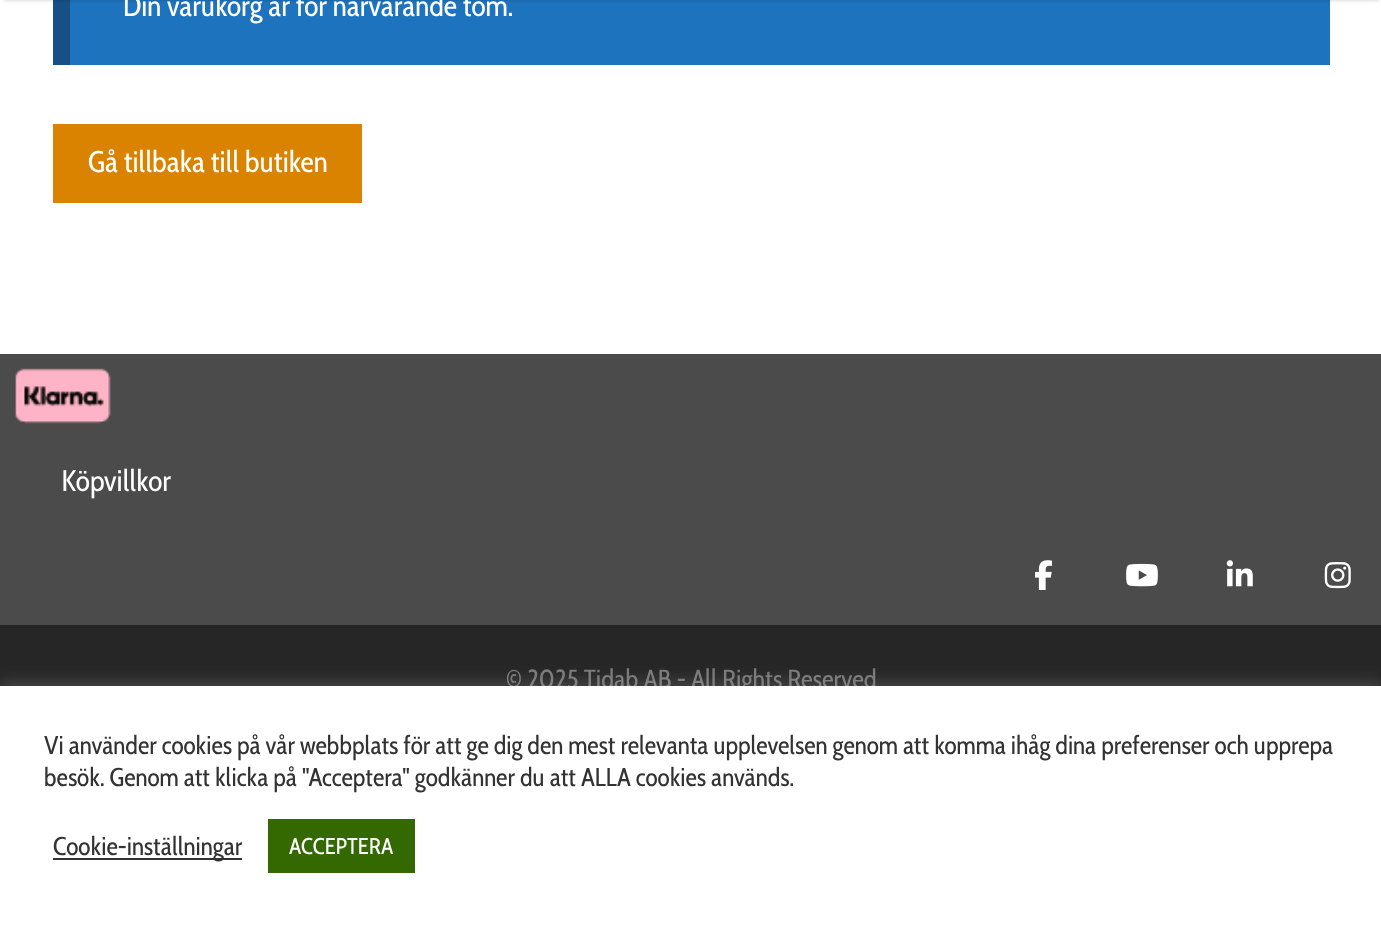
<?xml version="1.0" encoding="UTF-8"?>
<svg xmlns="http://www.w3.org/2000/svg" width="1381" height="925">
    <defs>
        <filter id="blur1" x="-50%" y="-200%" width="200%" height="500%"><feGaussianBlur stdDeviation="2"/></filter>
        <filter id="blur2" x="-50%" y="-200%" width="200%" height="500%"><feGaussianBlur stdDeviation="9"/></filter>
    </defs>
    <rect width="100%" height="100%" fill="#FFFFFF"/>
    <rect x="70" y="0" width="1260" height="65" fill="#1E73BE"/>
    <rect x="53" y="0" width="17" height="65" fill="#155185"/>
    <rect x="4" y="-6" width="1375" height="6" fill="#000000" fill-opacity="0.2" filter="url(#blur1)"/>
    <text x="123" y="16" font-family="Cabin Condensed" font-size="29.75" fill="#FFFFFF">Din varukorg är för närvarande tom.</text>
    <rect x="53" y="124" width="309" height="79" fill="#DA8300"/>
    <text x="88" y="172" font-family="Cabin Condensed" font-size="29.75" fill="#FFFFFF">Gå tillbaka till butiken</text>
    <rect x="0" y="354" width="1381" height="271" fill="#4B4B4B"/>
    <image x="15" y="368" width="96" height="56" href="img_01.png"/>
    <text x="61" y="491" font-family="Cabin Condensed" font-size="29.75" fill="#FFFFFF">Köpvillkor</text>
    <image x="1035" y="560" width="18" height="30" href="img_02.png"/>
    <image x="1126" y="563" width="32" height="24" href="img_03.png"/>
    <image x="1226" y="560" width="27" height="27" href="img_04.png"/>
    <image x="1324" y="562" width="27" height="27" href="img_05.png"/>
    <rect x="0" y="625" width="1381" height="61" fill="#262626"/>
    <text x="506" y="688" font-family="Cabin Condensed" font-size="26.25" fill="#7A7A7A">© 2025 Tidab AB - All Rights Reserved</text>
    <rect x="0" y="684" width="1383" height="240" fill="#ACABAB" fill-opacity="0.3" filter="url(#blur2)"/>
    <rect x="0" y="686" width="1381" height="239" fill="#FFFFFF"/>
    <text font-family="Cabin Condensed" font-size="25.67" fill="#333333">
        <tspan x="44" y="754">Vi använder cookies på vår webbplats för att ge dig den mest relevanta upplevelsen genom att komma ihåg dina preferenser och upprepa</tspan>
        <tspan x="44" y="786">besök. Genom att klicka på "Acceptera" godkänner du att ALLA cookies används.</tspan>
    </text>
    <rect x="53" y="858" width="189" height="2" fill="#333333"/>
    <text x="53" y="855" font-family="Cabin Condensed" font-size="25.67" fill="#333333">Cookie-inställningar</text>
    <rect x="268" y="819" width="147" height="54" fill="#346800"/>
    <text x="289" y="854" font-family="Cabin Condensed" font-size="22.75" fill="#FFFFFF">ACCEPTERA</text>
</svg>
